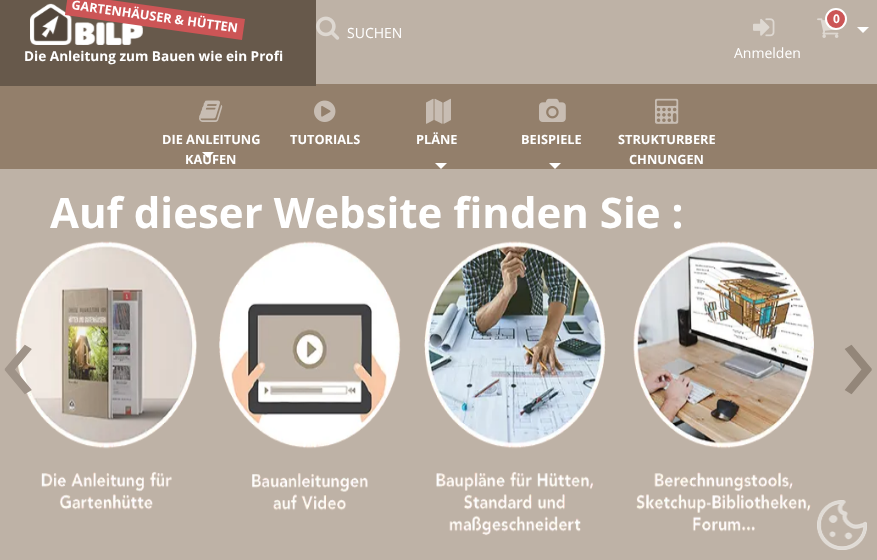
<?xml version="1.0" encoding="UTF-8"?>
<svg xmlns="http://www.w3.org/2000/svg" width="877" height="560">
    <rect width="100%" height="100%" fill="#BEB2A6"/>
    <rect x="0" y="84" width="877" height="85" fill="#937F6B"/>
    <rect x="0" y="0" width="316" height="86" fill="#67594B"/>
    <image x="30" y="3" width="113" height="42" href="img_01.png"/>
    <path d="M 68 -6 L 245 19 L 242 40 L 65 15 Z" fill="#CC5556"/>
    <text x="71" y="9" transform="rotate(8 71 9)" font-family="Open Sans" font-size="12.6" font-weight="700" fill="#FFFFFF">GARTENHÄUSER &amp; HÜTTEN</text>
    <text x="24" y="61" font-family="Open Sans" font-size="13.6" font-weight="700" fill="#FFFFFF">Die Anleitung zum Bauen wie ein Profi</text>
    <image x="817" y="18" width="24" height="20" href="img_02.png"/>
    <circle cx="836" cy="19" r="10" fill="#CC5556" stroke="#FFFFFF" stroke-width="2"/>
    <text x="833" y="23" font-family="Open Sans" font-size="12" font-weight="700" fill="#FFFFFF">0</text>
    <path d="M 857 27 H 869 L 863 33 Z" fill="#FFFFFF"/>
    <image x="316" y="16" width="24" height="24" href="img_03.png"/>
    <text x="347" y="38" font-family="Open Sans" font-size="14" fill="#FFFFFF">SUCHEN</text>
    <image x="753" y="18" width="22" height="19" href="img_04.png"/>
    <text x="734" y="58" font-family="Open Sans" font-size="14" fill="#FFFFFF">Anmelden</text>
    <image x="199" y="100" width="24" height="22" href="img_05.png"/>
    <text x="162" y="144" font-family="Open Sans" font-size="12.75" font-weight="700" fill="#FFFFFF">DIE ANLEITUNG</text>
    <text x="185" y="164" font-family="Open Sans" font-size="12.75" font-weight="700" fill="#FFFFFF">KAUFEN</text>
    <path d="M 202 152 H 214 L 208 158 Z" fill="#FFFFFF"/>
    <image x="314" y="100" width="22" height="22" href="img_06.png"/>
    <text x="290" y="144" font-family="Open Sans" font-size="12.75" font-weight="700" fill="#FFFFFF">TUTORIALS</text>
    <image x="426" y="98" width="25" height="26" href="img_07.png"/>
    <text x="416" y="144" font-family="Open Sans" font-size="12.75" font-weight="700" fill="#FFFFFF">PLÄNE</text>
    <path d="M 435 163 H 447 L 441 169 Z" fill="#FFFFFF"/>
    <image x="539" y="98" width="27" height="24" href="img_08.png"/>
    <text x="521" y="144" font-family="Open Sans" font-size="12.75" font-weight="700" fill="#FFFFFF">BEISPIELE</text>
    <path d="M 549 163 H 561 L 555 169 Z" fill="#FFFFFF"/>
    <image x="655" y="98" width="24" height="26" href="img_09.png"/>
    <text x="618" y="144" font-family="Open Sans" font-size="12.75" font-weight="700" fill="#FFFFFF">STRUKTURBERE</text>
    <text x="629" y="164" font-family="Open Sans" font-size="12.75" font-weight="700" fill="#FFFFFF">CHNUNGEN</text>
    <text x="50" y="228" font-family="Open Sans" font-size="42" font-weight="700" fill="#FFFFFF">Auf dieser Website finden Sie :</text>
    <image x="15" y="241" width="799" height="295" href="img_10.png"/>
    <text x="0" y="401" font-family="Open Sans" font-size="120" fill="#9F9388">‹</text>
    <text x="840" y="401" font-family="Open Sans" font-size="120" fill="#938679">›</text>
    <image x="817" y="500" width="50" height="50" href="img_11.png"/>
</svg>
